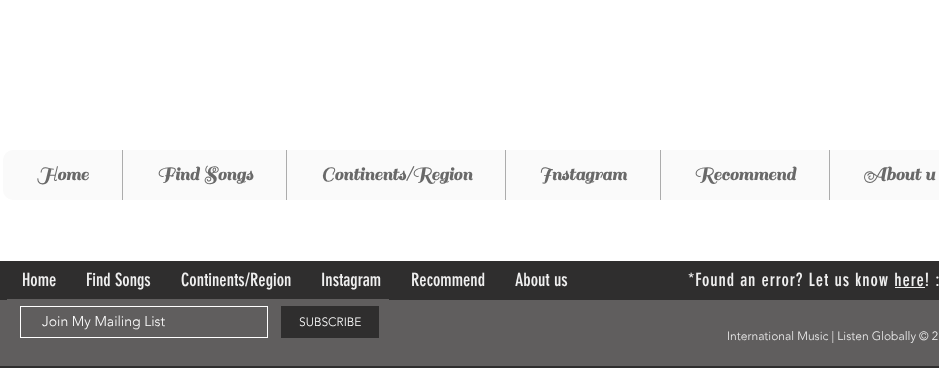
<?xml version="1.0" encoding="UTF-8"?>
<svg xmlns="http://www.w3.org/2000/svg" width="939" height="368">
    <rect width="100%" height="100%" fill="#FFFFFF"/>
    <rect x="3" y="150" width="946" height="50" rx="10" fill="#FAFAFA"/>
    <text x="37" y="180" font-family="Sail" font-size="20" font-weight="700" fill="#696969">Home</text>
    <rect x="122" y="150" width="1" height="50" fill="#ACACAC"/>
    <text x="157" y="180" font-family="Sail" font-size="20" font-weight="700" fill="#696969">Find Songs</text>
    <rect x="286" y="150" width="1" height="50" fill="#ACACAC"/>
    <text x="321" y="180" font-family="Sail" font-size="20" font-weight="700" fill="#696969">Continents/Region</text>
    <rect x="505" y="150" width="1" height="50" fill="#ACACAC"/>
    <text x="539" y="180" font-family="Sail" font-size="20" font-weight="700" fill="#696969">Instagram</text>
    <rect x="660" y="150" width="1" height="50" fill="#ACACAC"/>
    <text x="694" y="180" font-family="Sail" font-size="20" font-weight="700" fill="#696969">Recommend</text>
    <rect x="829" y="150" width="1" height="50" fill="#ACACAC"/>
    <text x="863" y="180" font-family="Sail" font-size="20" font-weight="700" fill="#696969">About u</text>
    <rect x="0" y="261" width="939" height="107" fill="#2F2E2E"/>
    <text x="22" y="286" font-family="'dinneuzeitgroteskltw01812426'" font-size="18" fill="#F0F0F0">Home</text>
    <text x="86" y="286" font-family="'dinneuzeitgroteskltw01812426'" font-size="18" fill="#F0F0F0">Find Songs</text>
    <text x="181" y="286" font-family="'dinneuzeitgroteskltw01812426'" font-size="18" fill="#F0F0F0">Continents/Region</text>
    <text x="321" y="286" font-family="'dinneuzeitgroteskltw01812426'" font-size="18" fill="#F0F0F0">Instagram</text>
    <text x="411" y="286" font-family="'dinneuzeitgroteskltw01812426'" font-size="18" fill="#F0F0F0">Recommend</text>
    <text x="515" y="286" font-family="'dinneuzeitgroteskltw01812426'" font-size="18" fill="#F0F0F0">About us</text>
    <text x="688" y="286" font-family="'dinneuzeitgroteskltw01812426'" font-size="18" letter-spacing="0.9" fill="#F0F0F0">*Found an error? Let us know here! :</text>
    <rect x="895" y="287" width="30" height="1" fill="#F0F0F0"/>
    <rect x="7" y="299" width="382" height="1" fill="#605E5E"/>
    <rect x="0" y="300" width="939" height="66" fill="#605E5E"/>
    <rect x="20.5" y="306.5" width="247" height="31" fill="none" stroke="#FFFFFF"/>
    <text x="42" y="326" font-family="'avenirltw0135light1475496'" font-size="14" font-weight="300" fill="#FFFFFF">Join My Mailing List</text>
    <rect x="281" y="306" width="98" height="32" fill="#2F2E2E"/>
    <text x="299" y="326" font-family="'avenirltw0135light1475496'" font-size="12" font-weight="300" fill="#FFFFFF">SUBSCRIBE</text>
    <text x="727" y="340" font-family="'avenirltw0135light1475496'" font-size="12" font-weight="300" fill="#F0F0F0">International Music | Listen Globally © 2</text>
</svg>
